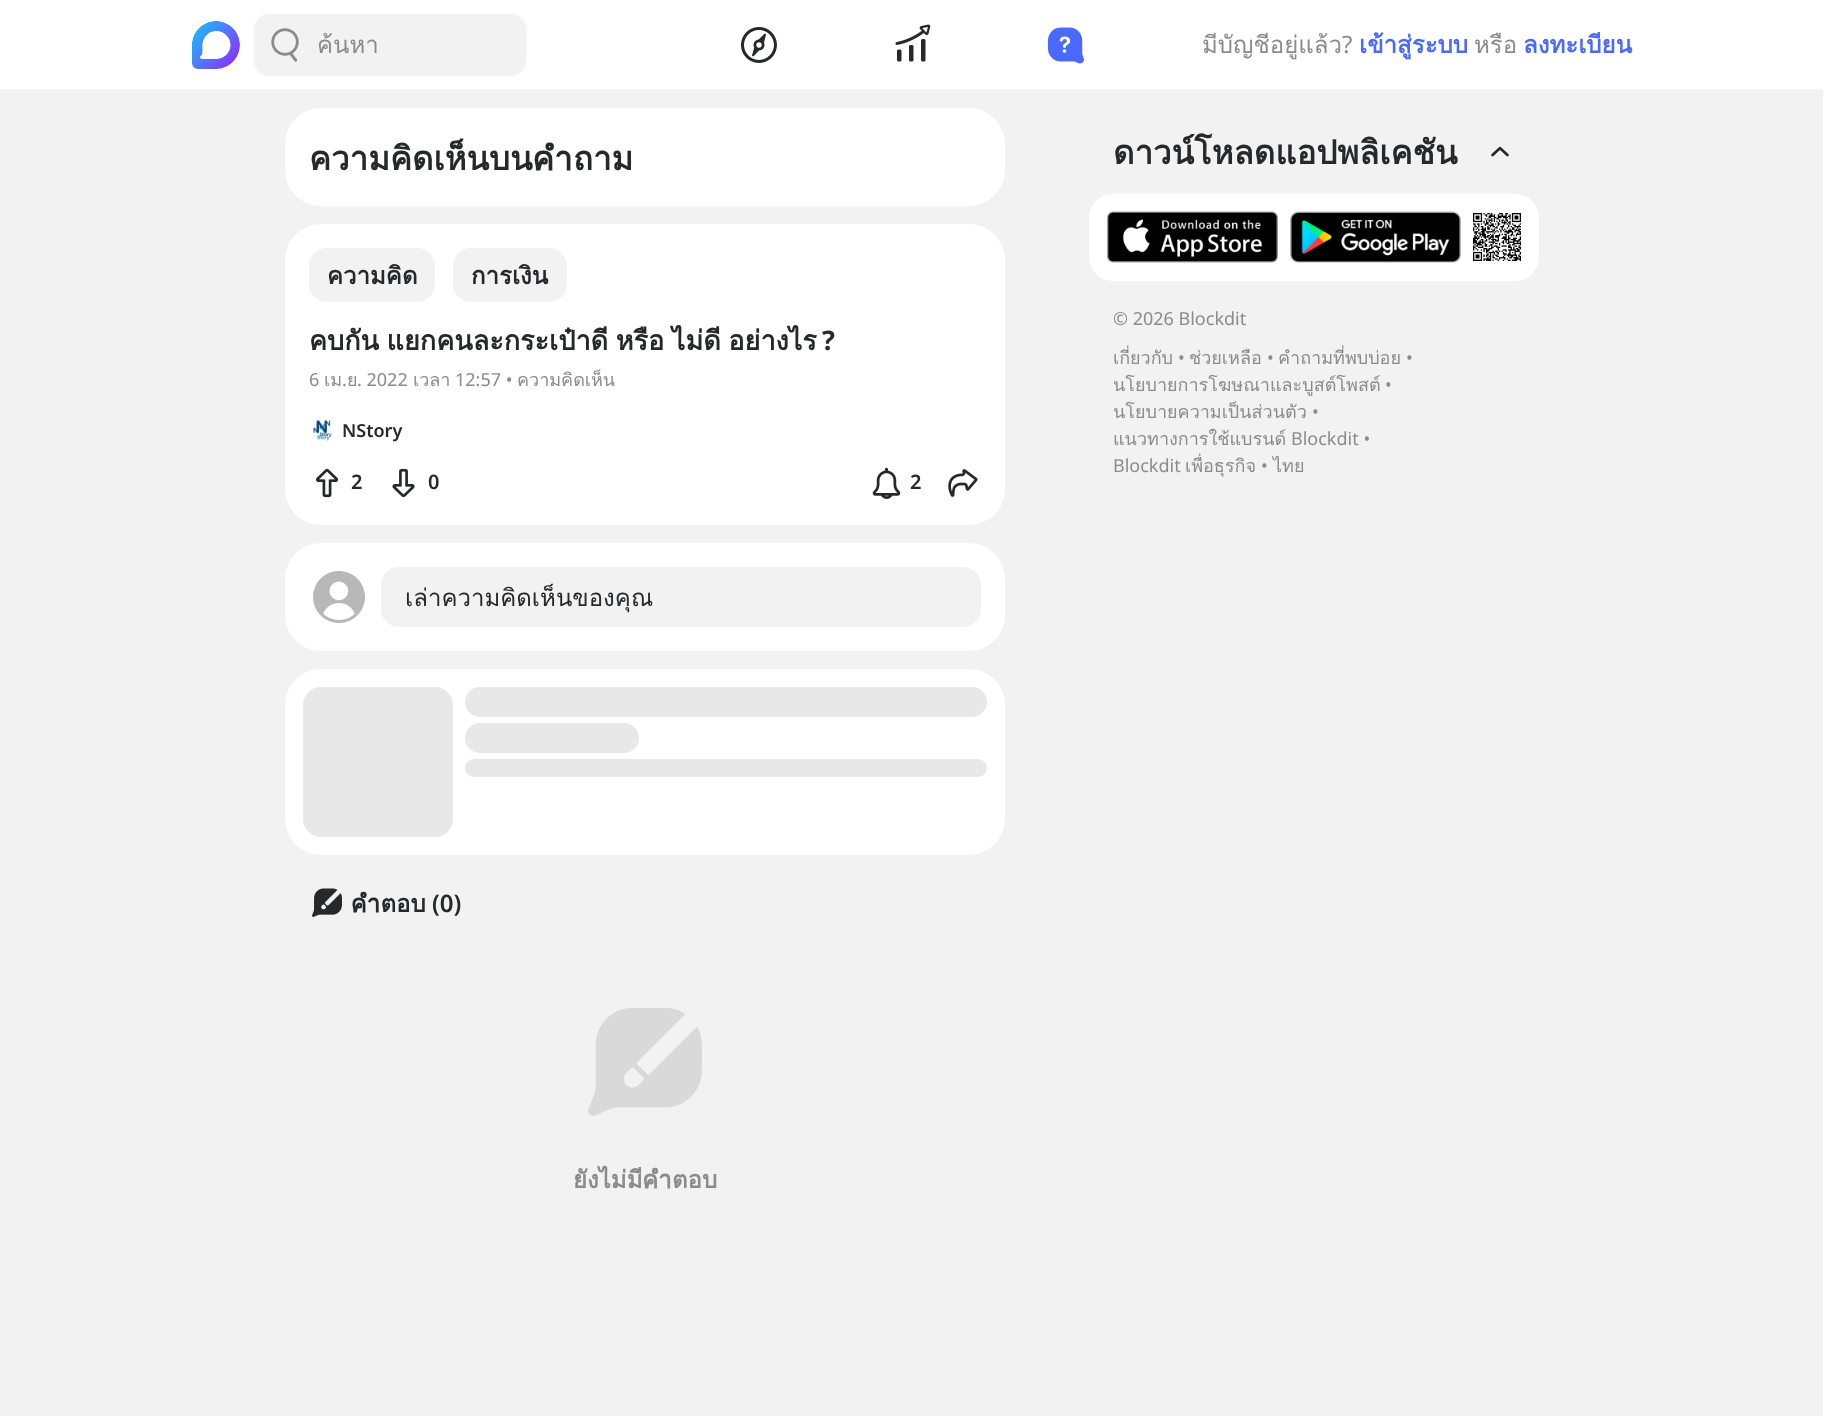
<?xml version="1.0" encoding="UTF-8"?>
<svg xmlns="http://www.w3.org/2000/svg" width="1823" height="1416">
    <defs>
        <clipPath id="clip1"><rect x="317" y="27" width="201" height="36"/></clipPath>
    </defs>
    <rect width="100%" height="100%" fill="#F2F2F2"/>
    <rect x="0" y="0" width="1823" height="89" fill="#FFFFFF"/>
    <image x="192" y="21" width="48" height="48" href="img_01.png"/>
    <rect x="253" y="13" width="274" height="64" rx="17" fill="#F2F2F2" stroke="#FCFCFC" stroke-width="2"/>
    <image x="271" y="28" width="28" height="34" href="img_02.png"/>
    <g clip-path="url(#clip1)">
        <text x="317" y="53" font-family="Loma" font-size="24" fill="#8B8B8B">ค้นหา</text>
    </g>
    <image x="741" y="27" width="36" height="36" href="img_03.png"/>
    <image x="895" y="24" width="36" height="38" href="img_04.png"/>
    <image x="1047" y="27" width="37" height="37" href="img_05.png"/>
    <text x="1202" y="53" font-family="Loma" font-size="24" fill="#8B8B8B">มีบัญชีอยู่แล้ว</text>
    <text x="1342" y="53" font-family="Noto Sans" font-size="24" fill="#8B8B8B">?</text>
    <text x="1359" y="53" font-family="Loma" font-size="24" font-weight="700" fill="#4A69FF">เข้าสู่ระบบ</text>
    <text x="1474" y="53" font-family="Loma" font-size="24" fill="#8B8B8B">หรือ</text>
    <text x="1523" y="53" font-family="Loma" font-size="24" font-weight="700" fill="#4A69FF">ลงทะเบียน</text>
    <rect x="285" y="108" width="720" height="98" rx="36" fill="#FFFFFF"/>
    <text x="309" y="170" font-family="Loma" font-size="33" font-weight="700" fill="#27282A">ความคิดเห็นบนคำถาม</text>
    <rect x="285" y="224" width="720" height="301" rx="36" fill="#FFFFFF"/>
    <rect x="309" y="248" width="126" height="54" rx="18" fill="#F2F2F2"/>
    <text x="327" y="284" font-family="Loma" font-size="24" font-weight="700" fill="#27282A">ความคิด</text>
    <rect x="453" y="248" width="114" height="54" rx="18" fill="#F2F2F2"/>
    <text x="471" y="284" font-family="Loma" font-size="24" font-weight="700" fill="#27282A">การเงิน</text>
    <text x="309" y="350" word-spacing="-1.5" font-family="Loma" font-size="27" font-weight="700" fill="#27282A">คบกัน แยกคนละกระเป๋าดี หรือ ไม่ดี อย่างไร</text>
    <text x="822" y="350" font-family="Noto Sans" font-size="27" font-weight="700" fill="#27282A">?</text>
    <text x="309" y="386" font-family="Noto Sans" font-size="18" fill="#8B8B8B">6</text>
    <text x="324" y="386" font-family="Loma" font-size="18" fill="#8B8B8B">เม</text>
    <text x="342" y="386" font-family="Noto Sans" font-size="18" fill="#8B8B8B">.</text>
    <text x="347" y="386" font-family="Loma" font-size="18" fill="#8B8B8B">ย</text>
    <text x="357" y="386" font-family="Noto Sans" font-size="18" fill="#8B8B8B">. 2022</text>
    <text x="413" y="386" font-family="Loma" font-size="18" fill="#8B8B8B">เวลา</text>
    <text x="455" y="386" font-family="Noto Sans" font-size="18" fill="#8B8B8B">12:57 •</text>
    <text x="517" y="386" font-family="Loma" font-size="18" fill="#8B8B8B">ความคิดเห็น</text>
    <image x="313" y="419" width="20" height="23" href="img_06.png"/>
    <text x="342" y="437" font-family="Noto Sans" font-size="18" font-weight="600" fill="#27282A">NStory</text>
    <image x="315" y="468" width="24" height="30" href="img_07.png"/>
    <text x="351" y="489" font-family="Noto Sans" font-size="20" font-weight="600" fill="#27282A">2</text>
    <image x="392" y="468" width="23" height="30" href="img_08.png"/>
    <text x="428" y="489" font-family="Noto Sans" font-size="20" font-weight="600" fill="#27282A">0</text>
    <image x="872" y="467" width="29" height="32" href="img_09.png"/>
    <text x="910" y="489" font-family="Noto Sans" font-size="20" font-weight="600" fill="#27282A">2</text>
    <image x="948" y="469" width="30" height="28" href="img_10.png"/>
    <rect x="285" y="543" width="720" height="108" rx="36" fill="#FFFFFF"/>
    <image x="313" y="571" width="52" height="52" href="img_11.png"/>
    <rect x="381" y="567" width="600" height="60" rx="18" fill="#F2F2F2"/>
    <text x="405" y="606" font-family="Loma" font-size="24" fill="#27282A">เล่าความคิดเห็นของคุณ</text>
    <rect x="285" y="669" width="720" height="186" rx="36" fill="#FFFFFF"/>
    <rect x="303" y="687" width="150" height="150" rx="18" fill="#E8E8E8"/>
    <rect x="465" y="687" width="522" height="30" rx="15" fill="#E8E8E8"/>
    <rect x="465" y="723" width="174" height="30" rx="15" fill="#E8E8E8"/>
    <rect x="465" y="759" width="522" height="18" rx="9" fill="#E8E8E8"/>
    <image x="312" y="888" width="30" height="29" href="img_12.png"/>
    <text x="351" y="912" font-family="Loma" font-size="24" font-weight="700" fill="#27282A">คำตอบ</text>
    <text x="432" y="912" font-family="Noto Sans" font-size="24" font-weight="600" fill="#27282A">(0)</text>
    <image x="588" y="1008" width="114" height="108" href="img_13.png"/>
    <text x="573" y="1188" font-family="Loma" font-size="24" font-weight="700" fill="#8B8B8B">ยังไม่มีคำตอบ</text>
    <text x="1113" y="164" font-family="Loma" font-size="33" font-weight="700" fill="#27282A">ดาวน์โหลดแอปพลิเคชัน</text>
    <image x="1491" y="146" width="18" height="11" href="img_14.png"/>
    <rect x="1089" y="194" width="450" height="87" rx="24" fill="#FFFFFF"/>
    <image x="1107" y="211" width="171" height="52" href="img_15.png"/>
    <image x="1290" y="211" width="171" height="52" href="img_16.png"/>
    <image x="1473" y="213" width="48" height="48" href="img_17.png"/>
    <text x="1113" y="325" font-family="Noto Sans" font-size="18" fill="#8B8B8B">© 2026 Blockdit</text>
    <text x="1113" y="364" font-family="Loma" font-size="18" fill="#8B8B8B">เกี่ยวกับ</text>
    <text x="1178" y="364" font-family="Noto Sans" font-size="18" fill="#8B8B8B">•</text>
    <text x="1189" y="364" font-family="Loma" font-size="18" fill="#8B8B8B">ช่วยเหลือ</text>
    <text x="1267" y="364" font-family="Noto Sans" font-size="18" fill="#8B8B8B">•</text>
    <text x="1278" y="364" font-family="Loma" font-size="18" fill="#8B8B8B">คำถามที่พบบ่อย</text>
    <text x="1406" y="364" font-family="Noto Sans" font-size="18" fill="#8B8B8B">•</text>
    <text x="1113" y="391" font-family="Loma" font-size="18" fill="#8B8B8B">นโยบายการโฆษณาและบูสต์โพสต์</text>
    <text x="1385" y="391" font-family="Noto Sans" font-size="18" fill="#8B8B8B">•</text>
    <text x="1113" y="418" font-family="Loma" font-size="18" fill="#8B8B8B">นโยบายความเป็นส่วนตัว</text>
    <text x="1312" y="418" font-family="Noto Sans" font-size="18" fill="#8B8B8B">•</text>
    <text x="1113" y="445" font-family="Loma" font-size="18" fill="#8B8B8B">แนวทางการใช้แบรนด์</text>
    <text x="1291" y="445" font-family="Noto Sans" font-size="18" fill="#8B8B8B">Blockdit •</text>
    <text x="1113" y="472" font-family="Noto Sans" font-size="18" fill="#8B8B8B">Blockdit</text>
    <text x="1185" y="472" font-family="Loma" font-size="18" fill="#8B8B8B">เพื่อธุรกิจ</text>
    <text x="1261" y="472" font-family="Noto Sans" font-size="18" fill="#8B8B8B">•</text>
    <text x="1273" y="472" font-family="Loma" font-size="18" fill="#8B8B8B">ไทย</text>
</svg>
